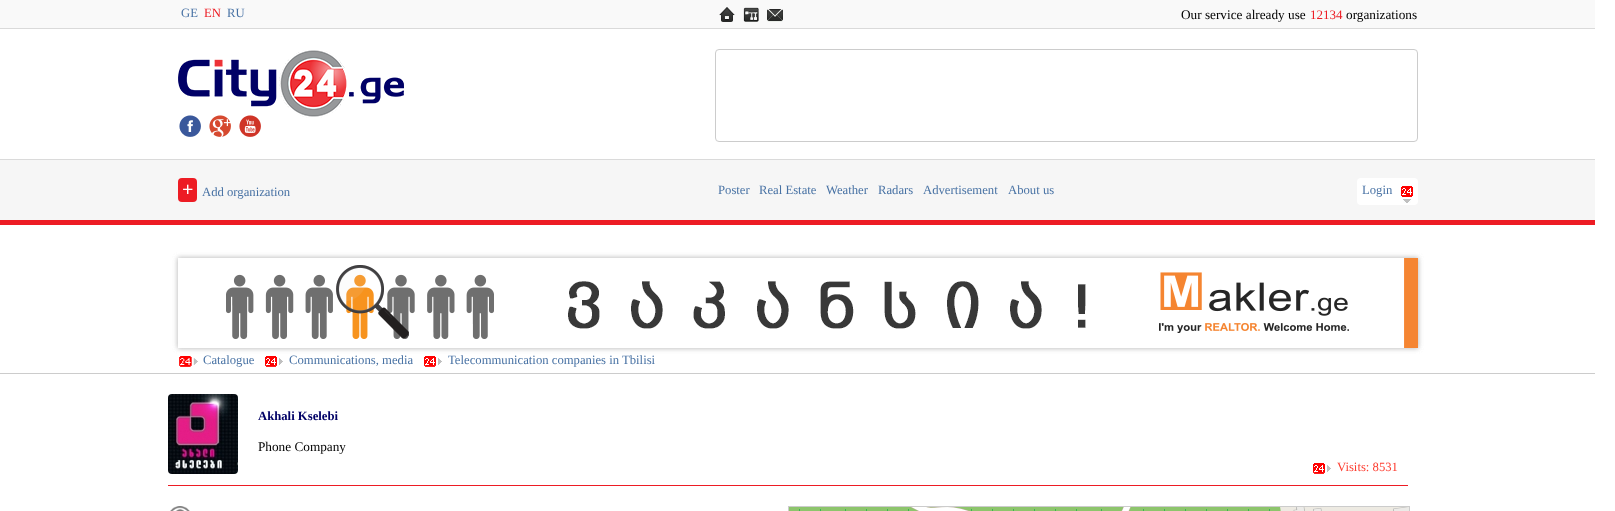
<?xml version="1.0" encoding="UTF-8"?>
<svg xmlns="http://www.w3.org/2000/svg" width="1615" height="511">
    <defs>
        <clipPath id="clip1"><path d="M 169 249 H 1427 V 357 H 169 Z M 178 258 H 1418 V 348 H 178 Z" clip-rule="evenodd"/></clipPath>
        <filter id="blur1" x="-50%" y="-200%" width="200%" height="500%"><feGaussianBlur stdDeviation="2.5"/></filter>
    </defs>
    <rect width="100%" height="100%" fill="#FFFFFF"/>
    <rect x="0" y="0" width="1595" height="28" fill="#F9F9F9"/>
    <rect x="0" y="28" width="1595" height="1" fill="#DADADA"/>
    <text x="181" y="17" font-family="Liberation Serif" font-size="12.7" fill="#4872A4">GE</text>
    <text x="204" y="17" font-family="Liberation Serif" font-size="12.7" fill="#ED1C24">EN</text>
    <text x="227" y="17" font-family="Liberation Serif" font-size="12.7" fill="#4872A4">RU</text>
    <image x="719" y="7" width="16" height="15" href="img_01.png"/>
    <image x="743" y="7" width="16" height="15" href="img_02.png"/>
    <image x="767" y="9" width="16" height="13" href="img_03.png"/>
    <text x="1181" y="19" font-family="Liberation Serif" font-size="13.25" fill="#000000">Our service already use</text>
    <text x="1310" y="19" font-family="Liberation Serif" font-size="13" fill="#ED1C24">12134</text>
    <text x="1346" y="19" font-family="Liberation Serif" font-size="13.25" fill="#000000">organizations</text>
    <image x="179" y="115" width="22" height="22" href="img_05.png"/>
    <image x="209" y="115" width="22" height="22" href="img_06.png"/>
    <image x="239" y="115" width="22" height="22" href="img_07.png"/>
    <image x="178" y="50" width="226" height="68" href="img_04.png"/>
    <rect x="715.5" y="49.5" width="702" height="92" rx="3.5" fill="none" stroke="#CCCCCC"/>
    <rect x="0" y="160" width="1595" height="60" fill="#F6F6F6"/>
    <rect x="0" y="159" width="1595" height="1" fill="#DADADA"/>
    <rect x="0" y="220" width="1595" height="5" fill="#ED1C24"/>
    <rect x="178" y="178" width="19" height="24" rx="4" fill="#ED1C24"/>
    <text x="182" y="196" font-family="Liberation Serif" font-size="20" font-weight="700" fill="#FFFFFF">+</text>
    <text x="202" y="196" font-family="Liberation Serif" font-size="12.7" fill="#4872A4">Add organization</text>
    <text x="718" y="194" font-family="Liberation Serif" font-size="12.7" fill="#4872A4">Poster</text>
    <text x="759" y="194" font-family="Liberation Serif" font-size="12.7" fill="#4872A4">Real Estate</text>
    <text x="826" y="194" font-family="Liberation Serif" font-size="12.7" fill="#4872A4">Weather</text>
    <text x="878" y="194" font-family="Liberation Serif" font-size="12.7" fill="#4872A4">Radars</text>
    <text x="923" y="194" font-family="Liberation Serif" font-size="12.7" fill="#4872A4">Advertisement</text>
    <text x="1008" y="194" font-family="Liberation Serif" font-size="12.7" fill="#4872A4">About us</text>
    <rect x="1357" y="178" width="61" height="27" rx="4" fill="#FFFFFF"/>
    <image x="1401" y="186" width="12" height="17" href="img_08.png"/>
    <text x="1362" y="194" font-family="Liberation Serif" font-size="12.7" fill="#4872A4">Login</text>
    <g clip-path="url(#clip1)">
        <rect x="178" y="258" width="1240" height="90" fill="#CCCCCC" filter="url(#blur1)"/>
    </g>
    <image x="179" y="356" width="19" height="11" href="img_10.png"/>
    <image x="265" y="356" width="18" height="11" href="img_11.png"/>
    <image x="424" y="356" width="18" height="11" href="img_11.png"/>
    <g clip-path="url(#clip1)">
        <rect x="178" y="258" width="1240" height="90" fill="#CCCCCC" filter="url(#blur1)"/>
    </g>
    <image x="226" y="258" width="1192" height="90" href="img_09.png"/>
    <rect x="0" y="373" width="1595" height="1" fill="#CCCCCC"/>
    <text x="203" y="364" font-family="Liberation Serif" font-size="12.7" fill="#4872A4">Catalogue</text>
    <text x="289" y="364" font-family="Liberation Serif" font-size="12.7" fill="#4872A4">Communications, media</text>
    <text x="448" y="364" font-family="Liberation Serif" font-size="12.7" fill="#4872A4">Telecommunication companies in Tbilisi</text>
    <rect x="168" y="485" width="1240" height="1" fill="#ED1C24"/>
    <image x="168" y="394" width="70" height="80" href="img_12.png"/>
    <text x="258" y="420" font-family="Liberation Serif" font-size="12.7" font-weight="700" fill="#000066">Akhali Kselebi</text>
    <text x="258" y="451" font-family="Liberation Serif" font-size="13.25" fill="#000000">Phone Company</text>
    <image x="1313" y="463" width="18" height="11" href="img_11.png"/>
    <text x="1337" y="471" font-family="Liberation Serif" font-size="12.7" fill="#FD3D30">Visits: 8531</text>
    <image x="170" y="506" width="20" height="5" href="img_13.png"/>
    <rect x="788.5" y="506.5" width="621" height="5" fill="none" stroke="#CCCCCC"/>
    <image x="789" y="507" width="46" height="4" href="img_14.png"/>
    <image x="835" y="507" width="256" height="4" href="img_15.png"/>
    <image x="1091" y="507" width="256" height="4" href="img_16.png"/>
    <image x="1347" y="507" width="62" height="4" href="img_17.png"/>
</svg>
